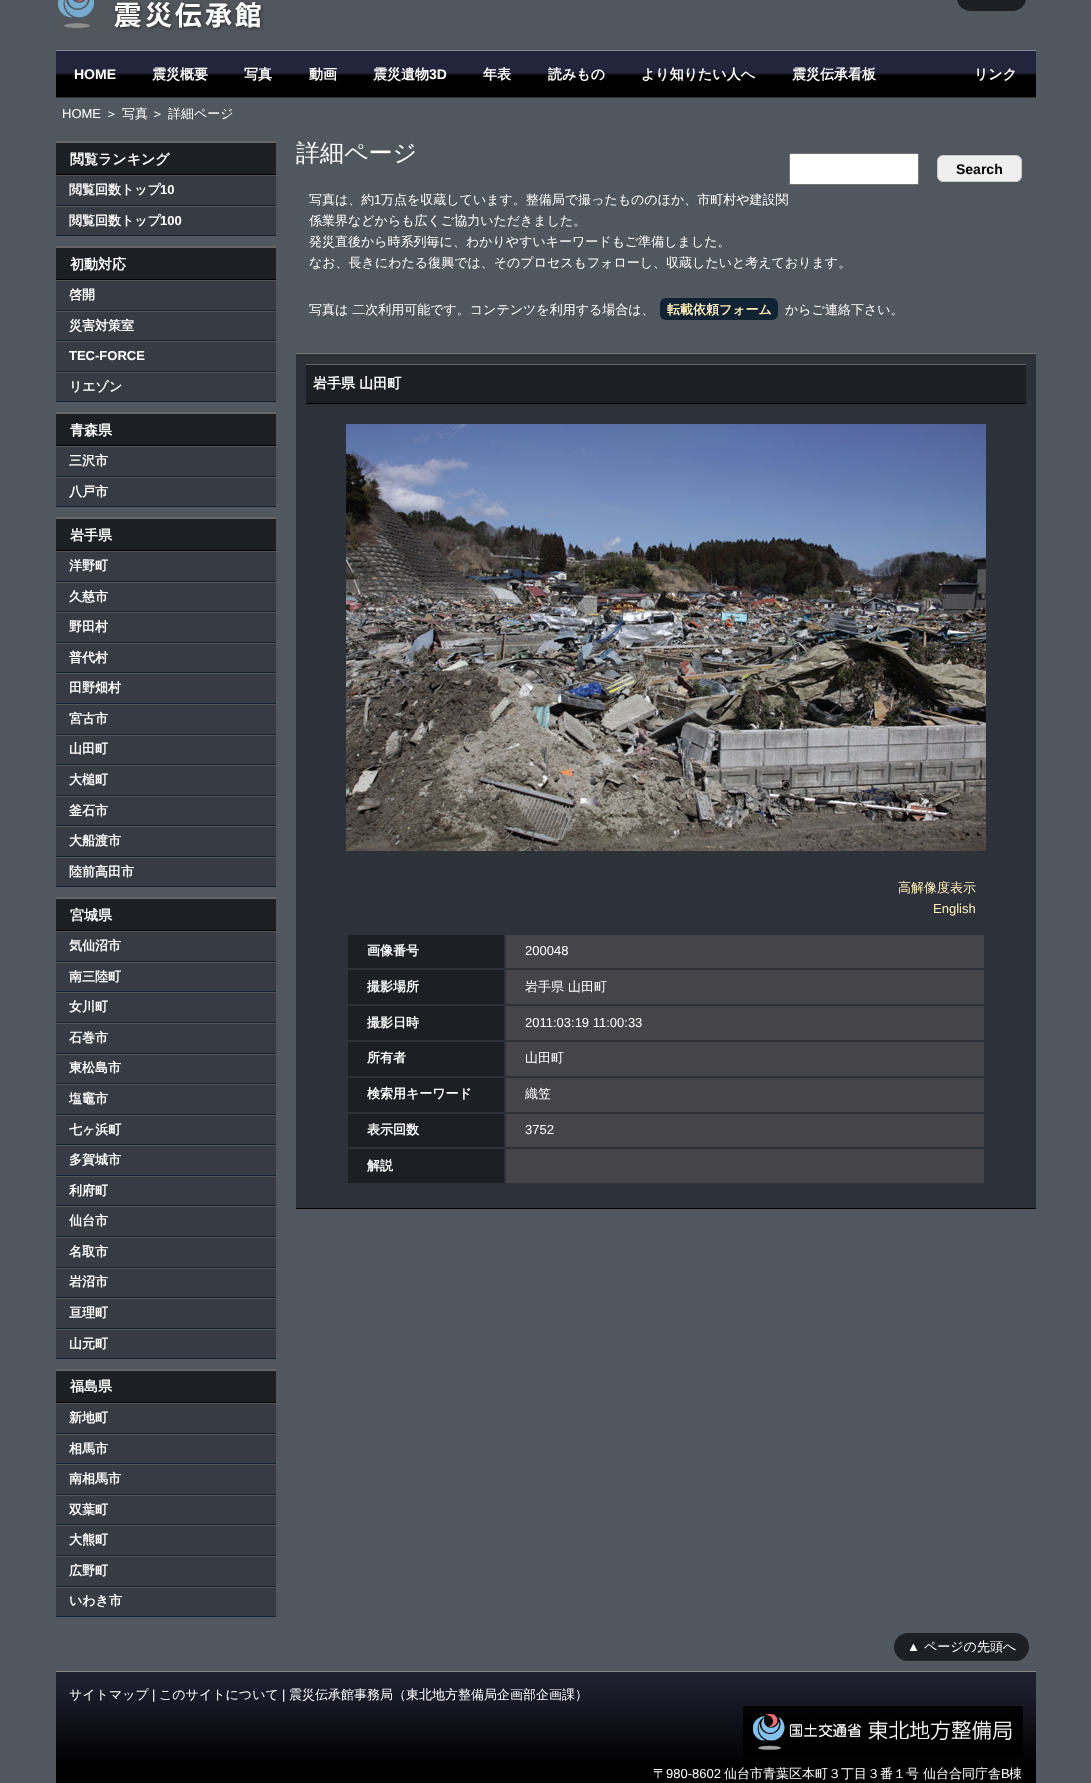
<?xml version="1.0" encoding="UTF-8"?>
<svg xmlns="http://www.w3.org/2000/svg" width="1091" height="1783">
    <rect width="100%" height="100%" fill="#51575E"/>
    <image x="58" y="0" width="206" height="31" href="img_01.png"/>
    <rect x="957" y="-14" width="69" height="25" rx="14" fill="#1C1F24"/>
    <image x="894" y="51" width="62" height="46" href="img_02.png"/>
    <rect x="56" y="50" width="980" height="1" fill="#888899"/>
    <rect x="56" y="97" width="980" height="1" fill="#333333"/>
    <image x="56" y="51" width="78" height="46" href="img_03.png"/>
    <text x="74" y="79" font-family="Liberation Sans" font-size="14" font-weight="700" fill="#FFFFFF">HOME</text>
    <image x="134" y="51" width="92" height="46" href="img_04.png"/>
    <text x="152" y="79" font-family="WenQuanYi Zen Hei" font-size="14" font-weight="700" fill="#FFFFFF">震災概要</text>
    <image x="226" y="51" width="65" height="46" href="img_05.png"/>
    <text x="244" y="79" font-family="WenQuanYi Zen Hei" font-size="14" font-weight="700" fill="#FFFFFF">写真</text>
    <image x="291" y="51" width="64" height="46" href="img_06.png"/>
    <text x="309" y="79" font-family="WenQuanYi Zen Hei" font-size="14" font-weight="700" fill="#FFFFFF">動画</text>
    <image x="355" y="51" width="110" height="46" href="img_07.png"/>
    <text x="373" y="79" font-family="WenQuanYi Zen Hei" font-size="14" font-weight="700" fill="#FFFFFF">震災遺物</text>
    <text x="429" y="79" font-family="Liberation Sans" font-size="14" font-weight="700" fill="#FFFFFF">3D</text>
    <image x="465" y="51" width="65" height="46" href="img_05.png"/>
    <text x="483" y="79" font-family="WenQuanYi Zen Hei" font-size="14" font-weight="700" fill="#FFFFFF">年表</text>
    <image x="530" y="51" width="93" height="46" href="img_08.png"/>
    <text x="548" y="79" font-family="WenQuanYi Zen Hei" font-size="14" font-weight="700" fill="#FFFFFF">読みもの</text>
    <image x="623" y="51" width="150" height="46" href="img_09.png"/>
    <text x="641" y="79" font-family="WenQuanYi Zen Hei" font-size="14" font-weight="700" fill="#FFFFFF">より知りたい人へ</text>
    <image x="773" y="51" width="121" height="46" href="img_10.png"/>
    <text x="792" y="79" font-family="WenQuanYi Zen Hei" font-size="14" font-weight="700" fill="#FFFFFF">震災伝承看板</text>
    <image x="956" y="51" width="80" height="46" href="img_11.png"/>
    <text x="974" y="79" font-family="WenQuanYi Zen Hei" font-size="14" font-weight="700" fill="#FFFFFF">リンク</text>
    <text x="62" y="118" font-family="Liberation Sans" font-size="13" fill="#FFFFFF">HOME</text>
    <text x="105" y="118" font-family="WenQuanYi Zen Hei" font-size="13" font-weight="500" fill="#FFFFFF">＞ 写真</text>
    <text x="151" y="118" font-family="WenQuanYi Zen Hei" font-size="13" font-weight="500" fill="#FFFFFF">＞ 詳細ページ</text>
    <rect x="56" y="143" width="220" height="31" fill="#1C1F24"/>
    <rect x="56" y="141" width="220" height="2" fill="#666666"/>
    <rect x="56" y="174" width="220" height="1" fill="#000000"/>
    <text x="70" y="164" font-family="WenQuanYi Zen Hei" font-size="14" font-weight="700" fill="#FFFFFF">閲覧ランキング</text>
    <rect x="56" y="176" width="220" height="59" fill="#373B43"/>
    <rect x="56" y="175" width="220" height="1" fill="#555555"/>
    <rect x="56" y="205" width="220" height="1" fill="#112233"/>
    <text x="69" y="194" font-family="WenQuanYi Zen Hei" font-size="13" font-weight="700" fill="#FFFFFF">閲覧回数トップ</text>
    <text x="160" y="194" font-family="Liberation Sans" font-size="13" font-weight="700" fill="#FFFFFF">10</text>
    <rect x="56" y="206" width="220" height="1" fill="#555555"/>
    <rect x="56" y="235" width="220" height="1" fill="#112233"/>
    <text x="69" y="225" font-family="WenQuanYi Zen Hei" font-size="13" font-weight="700" fill="#FFFFFF">閲覧回数トップ</text>
    <text x="160" y="225" font-family="Liberation Sans" font-size="13" font-weight="700" fill="#FFFFFF">100</text>
    <rect x="56" y="248" width="220" height="31" fill="#1C1F24"/>
    <rect x="56" y="246" width="220" height="2" fill="#666666"/>
    <rect x="56" y="279" width="220" height="1" fill="#000000"/>
    <text x="70" y="269" font-family="WenQuanYi Zen Hei" font-size="14" font-weight="700" fill="#FFFFFF">初動対応</text>
    <rect x="56" y="281" width="220" height="120" fill="#373B43"/>
    <rect x="56" y="280" width="220" height="1" fill="#555555"/>
    <rect x="56" y="310" width="220" height="1" fill="#112233"/>
    <text x="69" y="299" font-family="WenQuanYi Zen Hei" font-size="13" font-weight="700" fill="#FFFFFF">啓開</text>
    <rect x="56" y="311" width="220" height="1" fill="#555555"/>
    <rect x="56" y="340" width="220" height="1" fill="#112233"/>
    <text x="69" y="330" font-family="WenQuanYi Zen Hei" font-size="13" font-weight="700" fill="#FFFFFF">災害対策室</text>
    <rect x="56" y="341" width="220" height="1" fill="#555555"/>
    <rect x="56" y="371" width="220" height="1" fill="#112233"/>
    <text x="69" y="360" font-family="Liberation Sans" font-size="13" font-weight="700" fill="#FFFFFF">TEC-FORCE</text>
    <rect x="56" y="372" width="220" height="1" fill="#555555"/>
    <rect x="56" y="401" width="220" height="1" fill="#112233"/>
    <text x="69" y="391" font-family="WenQuanYi Zen Hei" font-size="13" font-weight="700" fill="#FFFFFF">リエゾン</text>
    <rect x="56" y="414" width="220" height="31" fill="#1C1F24"/>
    <rect x="56" y="412" width="220" height="2" fill="#666666"/>
    <rect x="56" y="445" width="220" height="1" fill="#000000"/>
    <text x="70" y="435" font-family="WenQuanYi Zen Hei" font-size="14" font-weight="700" fill="#FFFFFF">青森県</text>
    <rect x="56" y="447" width="220" height="59" fill="#373B43"/>
    <rect x="56" y="446" width="220" height="1" fill="#555555"/>
    <rect x="56" y="476" width="220" height="1" fill="#112233"/>
    <text x="69" y="465" font-family="WenQuanYi Zen Hei" font-size="13" font-weight="700" fill="#FFFFFF">三沢市</text>
    <rect x="56" y="477" width="220" height="1" fill="#555555"/>
    <rect x="56" y="506" width="220" height="1" fill="#112233"/>
    <text x="69" y="496" font-family="WenQuanYi Zen Hei" font-size="13" font-weight="700" fill="#FFFFFF">八戸市</text>
    <rect x="56" y="519" width="220" height="31" fill="#1C1F24"/>
    <rect x="56" y="517" width="220" height="2" fill="#666666"/>
    <rect x="56" y="550" width="220" height="1" fill="#000000"/>
    <text x="70" y="540" font-family="WenQuanYi Zen Hei" font-size="14" font-weight="700" fill="#FFFFFF">岩手県</text>
    <rect x="56" y="552" width="220" height="334" fill="#373B43"/>
    <rect x="56" y="551" width="220" height="1" fill="#555555"/>
    <rect x="56" y="581" width="220" height="1" fill="#112233"/>
    <text x="69" y="570" font-family="WenQuanYi Zen Hei" font-size="13" font-weight="700" fill="#FFFFFF">洋野町</text>
    <rect x="56" y="582" width="220" height="1" fill="#555555"/>
    <rect x="56" y="611" width="220" height="1" fill="#112233"/>
    <text x="69" y="601" font-family="WenQuanYi Zen Hei" font-size="13" font-weight="700" fill="#FFFFFF">久慈市</text>
    <rect x="56" y="612" width="220" height="1" fill="#555555"/>
    <rect x="56" y="642" width="220" height="1" fill="#112233"/>
    <text x="69" y="631" font-family="WenQuanYi Zen Hei" font-size="13" font-weight="700" fill="#FFFFFF">野田村</text>
    <rect x="56" y="643" width="220" height="1" fill="#555555"/>
    <rect x="56" y="672" width="220" height="1" fill="#112233"/>
    <text x="69" y="662" font-family="WenQuanYi Zen Hei" font-size="13" font-weight="700" fill="#FFFFFF">普代村</text>
    <rect x="56" y="673" width="220" height="1" fill="#555555"/>
    <rect x="56" y="703" width="220" height="1" fill="#112233"/>
    <text x="69" y="692" font-family="WenQuanYi Zen Hei" font-size="13" font-weight="700" fill="#FFFFFF">田野畑村</text>
    <rect x="56" y="704" width="220" height="1" fill="#555555"/>
    <rect x="56" y="734" width="220" height="1" fill="#112233"/>
    <text x="69" y="723" font-family="WenQuanYi Zen Hei" font-size="13" font-weight="700" fill="#FFFFFF">宮古市</text>
    <rect x="56" y="735" width="220" height="1" fill="#555555"/>
    <rect x="56" y="764" width="220" height="1" fill="#112233"/>
    <text x="69" y="753" font-family="WenQuanYi Zen Hei" font-size="13" font-weight="700" fill="#FFFFFF">山田町</text>
    <rect x="56" y="765" width="220" height="1" fill="#555555"/>
    <rect x="56" y="795" width="220" height="1" fill="#112233"/>
    <text x="69" y="784" font-family="WenQuanYi Zen Hei" font-size="13" font-weight="700" fill="#FFFFFF">大槌町</text>
    <rect x="56" y="796" width="220" height="1" fill="#555555"/>
    <rect x="56" y="825" width="220" height="1" fill="#112233"/>
    <text x="69" y="815" font-family="WenQuanYi Zen Hei" font-size="13" font-weight="700" fill="#FFFFFF">釜石市</text>
    <rect x="56" y="826" width="220" height="1" fill="#555555"/>
    <rect x="56" y="856" width="220" height="1" fill="#112233"/>
    <text x="69" y="845" font-family="WenQuanYi Zen Hei" font-size="13" font-weight="700" fill="#FFFFFF">大船渡市</text>
    <rect x="56" y="857" width="220" height="1" fill="#555555"/>
    <rect x="56" y="886" width="220" height="1" fill="#112233"/>
    <text x="69" y="876" font-family="WenQuanYi Zen Hei" font-size="13" font-weight="700" fill="#FFFFFF">陸前高田市</text>
    <rect x="56" y="899" width="220" height="31" fill="#1C1F24"/>
    <rect x="56" y="897" width="220" height="2" fill="#666666"/>
    <rect x="56" y="930" width="220" height="1" fill="#000000"/>
    <text x="70" y="920" font-family="WenQuanYi Zen Hei" font-size="14" font-weight="700" fill="#FFFFFF">宮城県</text>
    <rect x="56" y="932" width="220" height="426" fill="#373B43"/>
    <rect x="56" y="931" width="220" height="1" fill="#555555"/>
    <rect x="56" y="961" width="220" height="1" fill="#112233"/>
    <text x="69" y="950" font-family="WenQuanYi Zen Hei" font-size="13" font-weight="700" fill="#FFFFFF">気仙沼市</text>
    <rect x="56" y="962" width="220" height="1" fill="#555555"/>
    <rect x="56" y="991" width="220" height="1" fill="#112233"/>
    <text x="69" y="981" font-family="WenQuanYi Zen Hei" font-size="13" font-weight="700" fill="#FFFFFF">南三陸町</text>
    <rect x="56" y="992" width="220" height="1" fill="#555555"/>
    <rect x="56" y="1022" width="220" height="1" fill="#112233"/>
    <text x="69" y="1011" font-family="WenQuanYi Zen Hei" font-size="13" font-weight="700" fill="#FFFFFF">女川町</text>
    <rect x="56" y="1023" width="220" height="1" fill="#555555"/>
    <rect x="56" y="1053" width="220" height="1" fill="#112233"/>
    <text x="69" y="1042" font-family="WenQuanYi Zen Hei" font-size="13" font-weight="700" fill="#FFFFFF">石巻市</text>
    <rect x="56" y="1054" width="220" height="1" fill="#555555"/>
    <rect x="56" y="1083" width="220" height="1" fill="#112233"/>
    <text x="69" y="1072" font-family="WenQuanYi Zen Hei" font-size="13" font-weight="700" fill="#FFFFFF">東松島市</text>
    <rect x="56" y="1084" width="220" height="1" fill="#555555"/>
    <rect x="56" y="1114" width="220" height="1" fill="#112233"/>
    <text x="69" y="1103" font-family="WenQuanYi Zen Hei" font-size="13" font-weight="700" fill="#FFFFFF">塩竈市</text>
    <rect x="56" y="1115" width="220" height="1" fill="#555555"/>
    <rect x="56" y="1144" width="220" height="1" fill="#112233"/>
    <text x="69" y="1134" font-family="WenQuanYi Zen Hei" font-size="13" font-weight="700" fill="#FFFFFF">七ヶ浜町</text>
    <rect x="56" y="1145" width="220" height="1" fill="#555555"/>
    <rect x="56" y="1175" width="220" height="1" fill="#112233"/>
    <text x="69" y="1164" font-family="WenQuanYi Zen Hei" font-size="13" font-weight="700" fill="#FFFFFF">多賀城市</text>
    <rect x="56" y="1176" width="220" height="1" fill="#555555"/>
    <rect x="56" y="1205" width="220" height="1" fill="#112233"/>
    <text x="69" y="1195" font-family="WenQuanYi Zen Hei" font-size="13" font-weight="700" fill="#FFFFFF">利府町</text>
    <rect x="56" y="1206" width="220" height="1" fill="#555555"/>
    <rect x="56" y="1236" width="220" height="1" fill="#112233"/>
    <text x="69" y="1225" font-family="WenQuanYi Zen Hei" font-size="13" font-weight="700" fill="#FFFFFF">仙台市</text>
    <rect x="56" y="1237" width="220" height="1" fill="#555555"/>
    <rect x="56" y="1267" width="220" height="1" fill="#112233"/>
    <text x="69" y="1256" font-family="WenQuanYi Zen Hei" font-size="13" font-weight="700" fill="#FFFFFF">名取市</text>
    <rect x="56" y="1268" width="220" height="1" fill="#555555"/>
    <rect x="56" y="1297" width="220" height="1" fill="#112233"/>
    <text x="69" y="1286" font-family="WenQuanYi Zen Hei" font-size="13" font-weight="700" fill="#FFFFFF">岩沼市</text>
    <rect x="56" y="1298" width="220" height="1" fill="#555555"/>
    <rect x="56" y="1328" width="220" height="1" fill="#112233"/>
    <text x="69" y="1317" font-family="WenQuanYi Zen Hei" font-size="13" font-weight="700" fill="#FFFFFF">亘理町</text>
    <rect x="56" y="1329" width="220" height="1" fill="#555555"/>
    <rect x="56" y="1358" width="220" height="1" fill="#112233"/>
    <text x="69" y="1348" font-family="WenQuanYi Zen Hei" font-size="13" font-weight="700" fill="#FFFFFF">山元町</text>
    <rect x="56" y="1371" width="220" height="31" fill="#1C1F24"/>
    <rect x="56" y="1369" width="220" height="2" fill="#666666"/>
    <rect x="56" y="1402" width="220" height="1" fill="#000000"/>
    <text x="70" y="1391" font-family="WenQuanYi Zen Hei" font-size="14" font-weight="700" fill="#FFFFFF">福島県</text>
    <rect x="56" y="1404" width="220" height="212" fill="#373B43"/>
    <rect x="56" y="1403" width="220" height="1" fill="#555555"/>
    <rect x="56" y="1433" width="220" height="1" fill="#112233"/>
    <text x="69" y="1422" font-family="WenQuanYi Zen Hei" font-size="13" font-weight="700" fill="#FFFFFF">新地町</text>
    <rect x="56" y="1434" width="220" height="1" fill="#555555"/>
    <rect x="56" y="1463" width="220" height="1" fill="#112233"/>
    <text x="69" y="1453" font-family="WenQuanYi Zen Hei" font-size="13" font-weight="700" fill="#FFFFFF">相馬市</text>
    <rect x="56" y="1464" width="220" height="1" fill="#555555"/>
    <rect x="56" y="1494" width="220" height="1" fill="#112233"/>
    <text x="69" y="1483" font-family="WenQuanYi Zen Hei" font-size="13" font-weight="700" fill="#FFFFFF">南相馬市</text>
    <rect x="56" y="1495" width="220" height="1" fill="#555555"/>
    <rect x="56" y="1524" width="220" height="1" fill="#112233"/>
    <text x="69" y="1514" font-family="WenQuanYi Zen Hei" font-size="13" font-weight="700" fill="#FFFFFF">双葉町</text>
    <rect x="56" y="1525" width="220" height="1" fill="#555555"/>
    <rect x="56" y="1555" width="220" height="1" fill="#112233"/>
    <text x="69" y="1544" font-family="WenQuanYi Zen Hei" font-size="13" font-weight="700" fill="#FFFFFF">大熊町</text>
    <rect x="56" y="1556" width="220" height="1" fill="#555555"/>
    <rect x="56" y="1586" width="220" height="1" fill="#112233"/>
    <text x="69" y="1575" font-family="WenQuanYi Zen Hei" font-size="13" font-weight="700" fill="#FFFFFF">広野町</text>
    <rect x="56" y="1587" width="220" height="1" fill="#555555"/>
    <rect x="56" y="1616" width="220" height="1" fill="#112233"/>
    <text x="69" y="1605" font-family="WenQuanYi Zen Hei" font-size="13" font-weight="700" fill="#FFFFFF">いわき市</text>
    <text x="296" y="161" font-family="WenQuanYi Zen Hei" font-size="24" font-weight="500" fill="#FFFFFF">詳細ページ</text>
    <rect x="789.5" y="153.5" width="129" height="31" rx="1.5" fill="#FFFFFF" stroke="#767676"/>
    <rect x="937.5" y="155.5" width="84" height="26" rx="5.5" fill="#EFEFEF" stroke="#CCCCCC"/>
    <text x="956" y="174" font-family="Liberation Sans" font-size="14" font-weight="700" fill="#000000">Search</text>
    <text x="309" y="204" font-family="WenQuanYi Zen Hei" font-size="13" font-weight="500" fill="#FFFFFF">写真は、約</text>
    <text x="374" y="204" font-family="Liberation Sans" font-size="13" fill="#FFFFFF">1</text>
    <text x="381" y="204" font-family="WenQuanYi Zen Hei" font-size="13" font-weight="500" fill="#FFFFFF">万点を収蔵しています。整備局で撮ったもののほか、市町村や建設関</text>
    <text font-family="WenQuanYi Zen Hei" font-size="13" font-weight="500" fill="#FFFFFF">
        <tspan x="309" y="225">係業界などからも広くご協力いただきました。</tspan>
        <tspan x="309" y="246">発災直後から時系列毎に、わかりやすいキーワードもご準備しました。</tspan>
        <tspan x="309" y="267">なお、長きにわたる復興では、そのプロセスもフォローし、収蔵したいと考えております。</tspan>
    </text>
    <text x="309" y="314" font-family="WenQuanYi Zen Hei" font-size="13" font-weight="500" fill="#FFFFFF">写真は 二次利用可能です。コンテンツを利用する場合は、</text>
    <rect x="660" y="298" width="118" height="22" rx="6" fill="#112233"/>
    <text x="667" y="314" font-family="WenQuanYi Zen Hei" font-size="13" font-weight="700" fill="#FFEEBB">転載依頼フォーム</text>
    <text x="785" y="314" font-family="WenQuanYi Zen Hei" font-size="13" font-weight="500" fill="#FFFFFF">からご連絡下さい。</text>
    <rect x="296" y="354" width="740" height="854" fill="#2D3139"/>
    <rect x="296" y="353" width="740" height="1" fill="#777777"/>
    <rect x="296" y="1208" width="740" height="1" fill="#000000"/>
    <rect x="306" y="365" width="720" height="38" fill="#1C1F24"/>
    <rect x="306" y="364" width="720" height="1" fill="#666666"/>
    <rect x="306" y="403" width="720" height="1" fill="#000000"/>
    <text x="313" y="388" font-family="WenQuanYi Zen Hei" font-size="14" font-weight="700" fill="#FFFFFF">岩手県 山田町</text>
    <image x="346" y="424" width="640" height="427" href="img_12.png"/>
    <text x="898" y="892" font-family="WenQuanYi Zen Hei" font-size="13" font-weight="500" fill="#FFEEBB">高解像度表示</text>
    <text x="933" y="913" font-family="Liberation Sans" font-size="13" fill="#FFEEBB">English</text>
    <rect x="348" y="935" width="156" height="33" fill="#1C1F24"/>
    <text x="367" y="955" font-family="WenQuanYi Zen Hei" font-size="13" font-weight="700" fill="#FFFFFF">画像番号</text>
    <rect x="506" y="935" width="478" height="33" fill="#444449"/>
    <text x="525" y="955" font-family="Liberation Sans" font-size="13" fill="#FFFFFF">200048</text>
    <rect x="348" y="970" width="156" height="34" fill="#1C1F24"/>
    <text x="367" y="991" font-family="WenQuanYi Zen Hei" font-size="13" font-weight="700" fill="#FFFFFF">撮影場所</text>
    <rect x="506" y="970" width="478" height="34" fill="#444449"/>
    <text x="525" y="991" font-family="WenQuanYi Zen Hei" font-size="13" font-weight="500" fill="#FFFFFF">岩手県 山田町</text>
    <rect x="348" y="1006" width="156" height="34" fill="#1C1F24"/>
    <text x="367" y="1027" font-family="WenQuanYi Zen Hei" font-size="13" font-weight="700" fill="#FFFFFF">撮影日時</text>
    <rect x="506" y="1006" width="478" height="34" fill="#444449"/>
    <text x="525" y="1027" font-family="Liberation Sans" font-size="13" fill="#FFFFFF">2011:03:19 11:00:33</text>
    <rect x="348" y="1042" width="156" height="34" fill="#1C1F24"/>
    <text x="367" y="1062" font-family="WenQuanYi Zen Hei" font-size="13" font-weight="700" fill="#FFFFFF">所有者</text>
    <rect x="506" y="1042" width="478" height="34" fill="#444449"/>
    <text x="525" y="1062" font-family="WenQuanYi Zen Hei" font-size="13" font-weight="500" fill="#FFFFFF">山田町</text>
    <rect x="348" y="1078" width="156" height="34" fill="#1C1F24"/>
    <text x="367" y="1098" font-family="WenQuanYi Zen Hei" font-size="13" font-weight="700" fill="#FFFFFF">検索用キーワード</text>
    <rect x="506" y="1078" width="478" height="34" fill="#444449"/>
    <text x="525" y="1098" font-family="WenQuanYi Zen Hei" font-size="13" font-weight="500" fill="#FFFFFF">織笠</text>
    <rect x="348" y="1114" width="156" height="33" fill="#1C1F24"/>
    <text x="367" y="1134" font-family="WenQuanYi Zen Hei" font-size="13" font-weight="700" fill="#FFFFFF">表示回数</text>
    <rect x="506" y="1114" width="478" height="33" fill="#444449"/>
    <text x="525" y="1134" font-family="Liberation Sans" font-size="13" fill="#FFFFFF">3752</text>
    <rect x="348" y="1149" width="156" height="34" fill="#1C1F24"/>
    <text x="367" y="1170" font-family="WenQuanYi Zen Hei" font-size="13" font-weight="700" fill="#FFFFFF">解説</text>
    <rect x="506" y="1149" width="478" height="34" fill="#444449"/>
    <rect x="894" y="1633" width="135" height="28" rx="14" fill="#1C1F24"/>
    <text x="907" y="1651" font-family="Liberation Sans" font-size="13" fill="#FFFFFF">▲</text>
    <text x="924" y="1651" font-family="WenQuanYi Zen Hei" font-size="13" font-weight="500" fill="#FFFFFF">ページの先頭へ</text>
    <rect x="56" y="1760" width="980" height="23" fill="#000000"/>
    <image x="56" y="1672" width="980" height="88" href="img_13.png"/>
    <rect x="56" y="1671" width="980" height="1" fill="#888888"/>
    <text x="69" y="1699" font-family="WenQuanYi Zen Hei" font-size="13" font-weight="500" fill="#FFFFFF">サイトマップ</text>
    <text x="152" y="1699" font-family="Liberation Sans" font-size="13" fill="#FFFFFF">|</text>
    <text x="159" y="1699" font-family="WenQuanYi Zen Hei" font-size="13" font-weight="500" fill="#FFFFFF">このサイトについて</text>
    <text x="282" y="1699" font-family="Liberation Sans" font-size="13" fill="#FFFFFF">|</text>
    <text x="289" y="1699" font-family="WenQuanYi Zen Hei" font-size="13" font-weight="500" fill="#FFFFFF">震災伝承館事務局（東北地方整備局企画部企画課）</text>
    <image x="743" y="1706" width="280" height="52" href="img_14.png"/>
    <text x="653" y="1778" font-family="WenQuanYi Zen Hei" font-size="13" font-weight="500" fill="#FFFFFF">〒</text>
    <text x="666" y="1778" font-family="Liberation Sans" font-size="13" fill="#FFFFFF">980-8602</text>
    <text x="724" y="1778" font-family="WenQuanYi Zen Hei" font-size="13" font-weight="500" fill="#FFFFFF">仙台市青葉区本町３丁目３番１号 仙台合同庁舎</text>
    <text x="1001" y="1778" font-family="Liberation Sans" font-size="13" fill="#FFFFFF">B</text>
    <text x="1009" y="1778" font-family="WenQuanYi Zen Hei" font-size="13" font-weight="500" fill="#FFFFFF">棟</text>
</svg>
